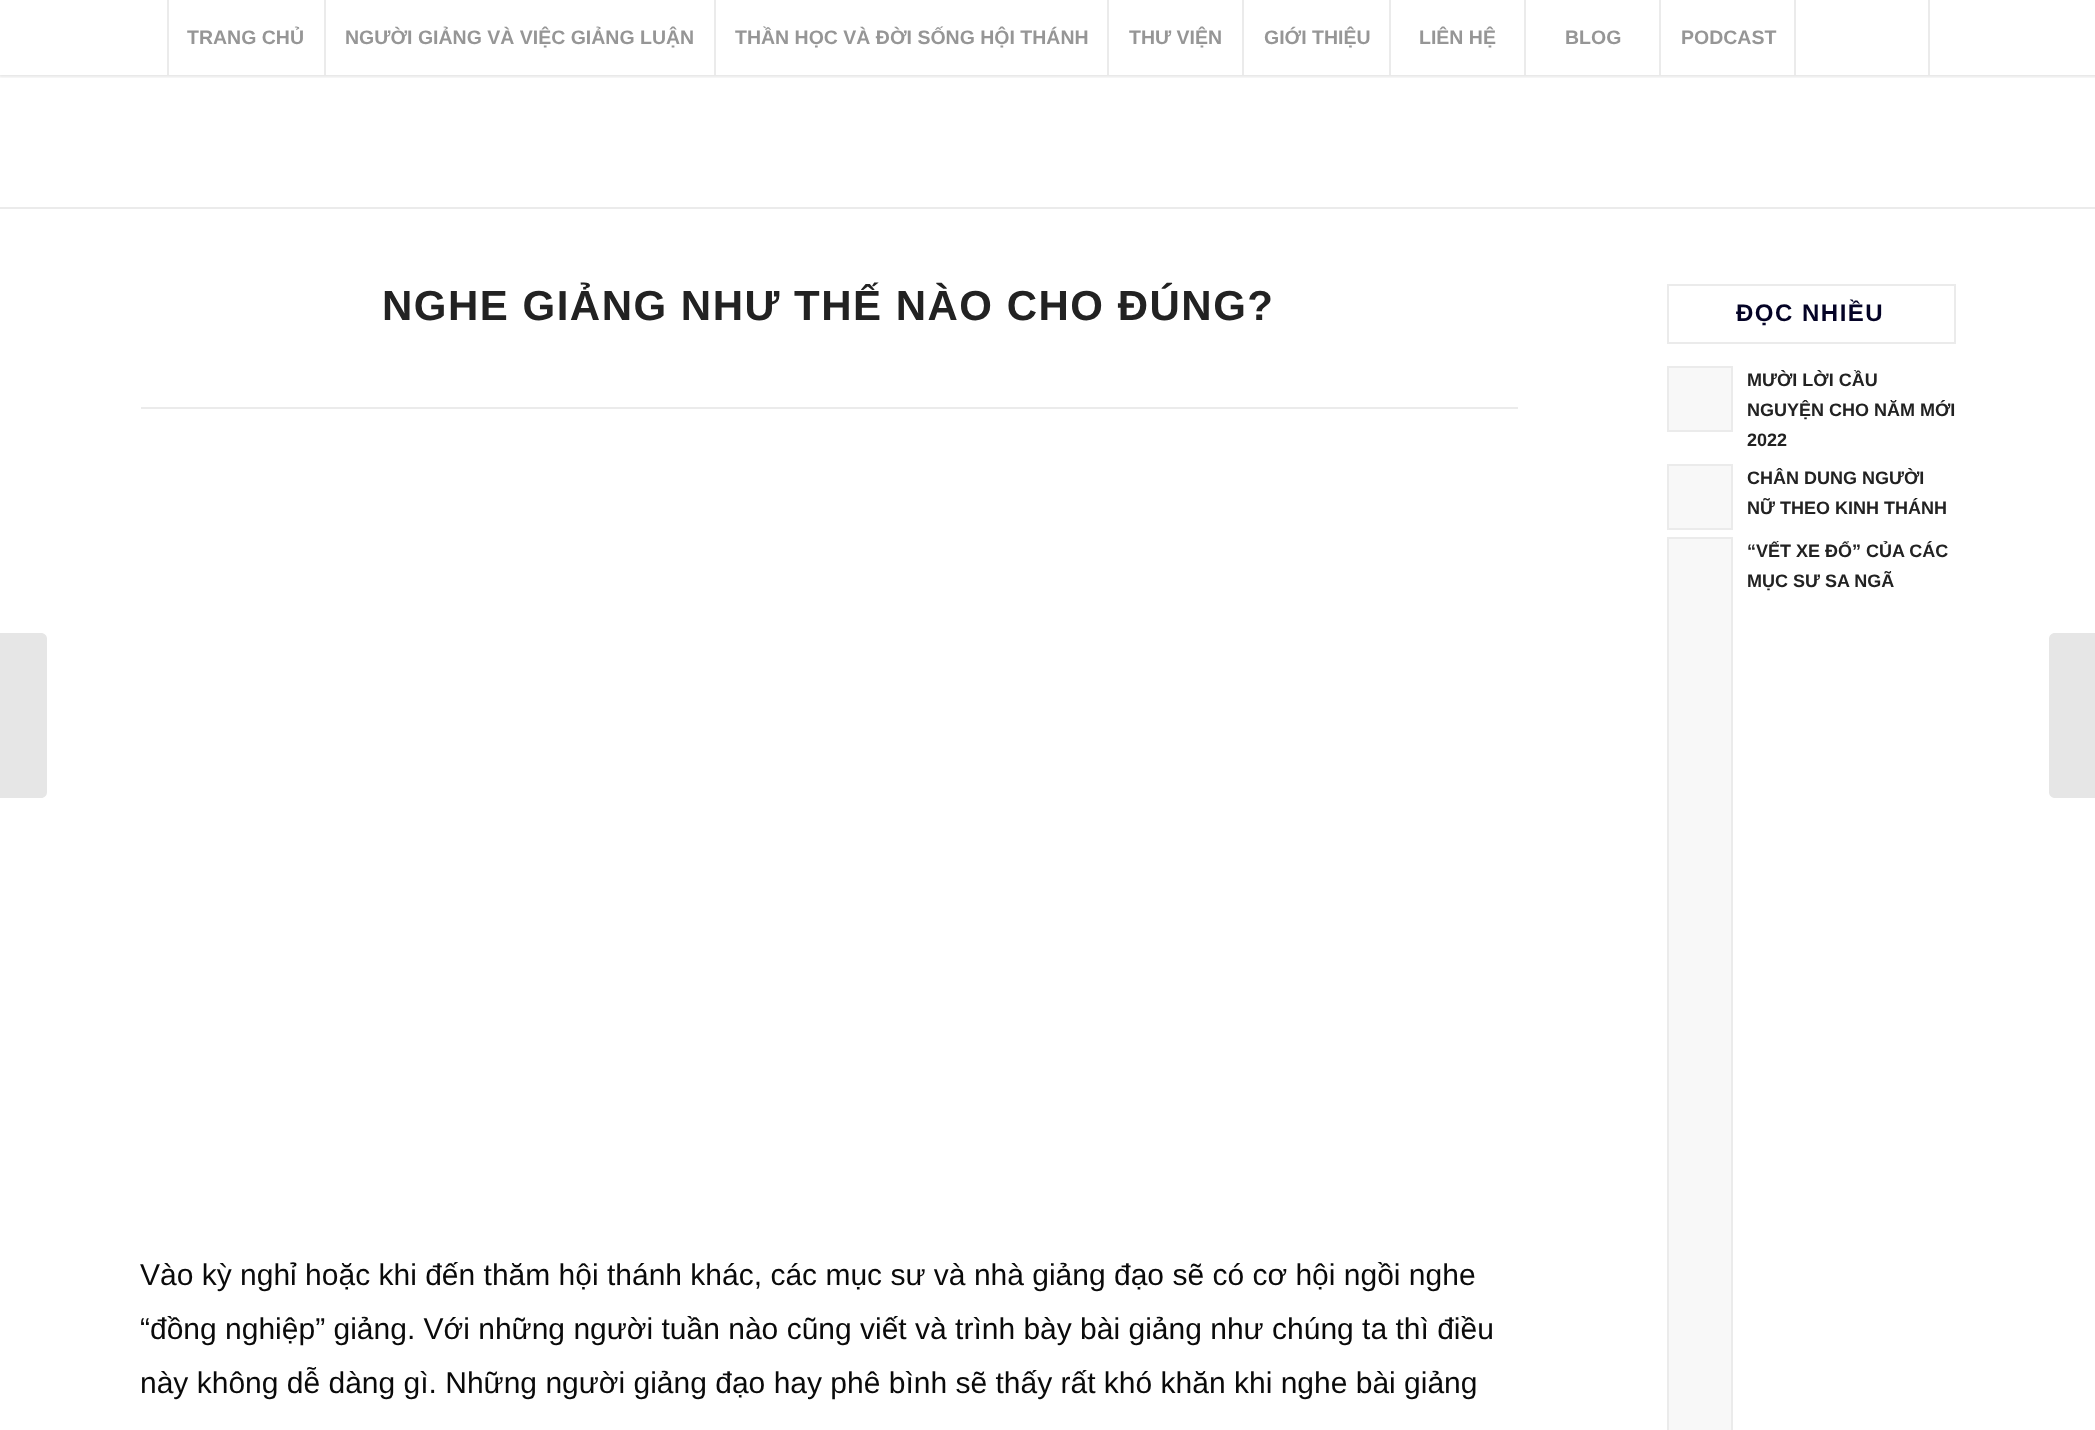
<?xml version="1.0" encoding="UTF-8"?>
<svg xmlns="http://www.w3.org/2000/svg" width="2095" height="1430">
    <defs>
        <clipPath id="clip1"><rect x="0" y="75" width="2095" height="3"/></clipPath>
        <filter id="blur1" x="-50%" y="-200%" width="200%" height="500%"><feGaussianBlur stdDeviation="1.5"/></filter>
    </defs>
    <rect width="100%" height="100%" fill="#FFFFFF"/>
    <g clip-path="url(#clip1)">
        <rect x="-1" y="-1" width="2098" height="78" fill="#000000" fill-opacity="0.1" filter="url(#blur1)"/>
    </g>
    <rect x="167" y="0" width="2" height="75" fill="#EBEBEB"/>
    <text x="187" y="44" font-family="Liberation Sans" font-size="19.5" font-weight="700" fill="#969696">TRANG CHỦ</text>
    <rect x="324" y="0" width="2" height="75" fill="#EBEBEB"/>
    <text x="345" y="44" font-family="Liberation Sans" font-size="19.5" font-weight="700" fill="#969696">NGƯỜI GIẢNG VÀ VIỆC GIẢNG LUẬN</text>
    <rect x="714" y="0" width="2" height="75" fill="#EBEBEB"/>
    <text x="735" y="44" font-family="Liberation Sans" font-size="19.5" font-weight="700" fill="#969696">THẦN HỌC VÀ ĐỜI SỐNG HỘI THÁNH</text>
    <rect x="1107" y="0" width="2" height="75" fill="#EBEBEB"/>
    <text x="1129" y="44" font-family="Liberation Sans" font-size="19.5" font-weight="700" fill="#969696">THƯ VIỆN</text>
    <rect x="1242" y="0" width="2" height="75" fill="#EBEBEB"/>
    <text x="1264" y="44" font-family="Liberation Sans" font-size="19.5" font-weight="700" fill="#969696">GIỚI THIỆU</text>
    <rect x="1389" y="0" width="2" height="75" fill="#EBEBEB"/>
    <text x="1419" y="44" font-family="Liberation Sans" font-size="19.5" font-weight="700" fill="#969696">LIÊN HỆ</text>
    <rect x="1524" y="0" width="2" height="75" fill="#EBEBEB"/>
    <text x="1565" y="44" font-family="Liberation Sans" font-size="19.5" font-weight="700" fill="#969696">BLOG</text>
    <rect x="1659" y="0" width="2" height="75" fill="#EBEBEB"/>
    <text x="1681" y="44" font-family="Liberation Sans" font-size="19.5" font-weight="700" fill="#969696">PODCAST</text>
    <rect x="1928" y="0" width="2" height="75" fill="#EBEBEB"/>
    <rect x="1794" y="0" width="2" height="75" fill="#EBEBEB"/>
    <path d="M 0 633 H 41 C 44.5 633 47 635.5 47 639 V 792 C 47 795.5 44.5 798 41 798 H 0 Z" fill="#E6E6E6"/>
    <rect x="0" y="207" width="2095" height="2" fill="#EBEBEB"/>
    <text x="382" y="320" font-family="Liberation Sans" font-size="42" font-weight="700" letter-spacing="1.5" fill="#222222">NGHE GIẢNG NHƯ THẾ NÀO CHO ĐÚNG?</text>
    <rect x="141" y="407" width="1377" height="2" fill="#EBEBEB"/>
    <text font-family="Liberation Sans" font-size="30" fill="#0A0A0A">
        <tspan x="140" y="1285">Vào kỳ nghỉ hoặc khi đến thăm hội thánh khác, các mục sư và nhà giảng đạo sẽ có cơ hội ngồi nghe</tspan>
        <tspan x="140" y="1339">“đồng nghiệp” giảng. Với những người tuần nào cũng viết và trình bày bài giảng như chúng ta thì điều</tspan>
        <tspan x="140" y="1393">này không dễ dàng gì. Những người giảng đạo hay phê bình sẽ thấy rất khó khăn khi nghe bài giảng</tspan>
    </text>
    <rect x="1668" y="285" width="287" height="58" fill="none" stroke="#EBEBEB" stroke-width="2"/>
    <text x="1736" y="321" font-family="Liberation Sans" font-size="24" font-weight="700" letter-spacing="1.5" fill="#040326">ĐỌC NHIỀU</text>
    <rect x="1668" y="367" width="64" height="64" fill="#F8F8F8" stroke="#EBEBEB" stroke-width="2"/>
    <text font-family="Liberation Sans" font-size="18" font-weight="700" fill="#222222">
        <tspan x="1747" y="386">MƯỜI LỜI CẦU</tspan>
        <tspan x="1747" y="416">NGUYỆN CHO NĂM MỚI</tspan>
        <tspan x="1747" y="446">2022</tspan>
    </text>
    <rect x="1668" y="465" width="64" height="64" fill="#F8F8F8" stroke="#EBEBEB" stroke-width="2"/>
    <text font-family="Liberation Sans" font-size="18" font-weight="700" fill="#222222">
        <tspan x="1747" y="484">CHÂN DUNG NGƯỜI</tspan>
        <tspan x="1747" y="514">NỮ THEO KINH THÁNH</tspan>
    </text>
    <rect x="1668" y="538" width="64" height="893" fill="#F8F8F8" stroke="#EBEBEB" stroke-width="2"/>
    <text font-family="Liberation Sans" font-size="18" font-weight="700" fill="#222222">
        <tspan x="1747" y="557">“VẾT XE ĐỔ” CỦA CÁC</tspan>
        <tspan x="1747" y="587">MỤC SƯ SA NGÃ</tspan>
    </text>
    <path d="M 2055 633 H 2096 V 798 H 2055 C 2051.5 798 2049 795.5 2049 792 V 639 C 2049 635.5 2051.5 633 2055 633 Z" fill="#E6E6E6"/>
</svg>
